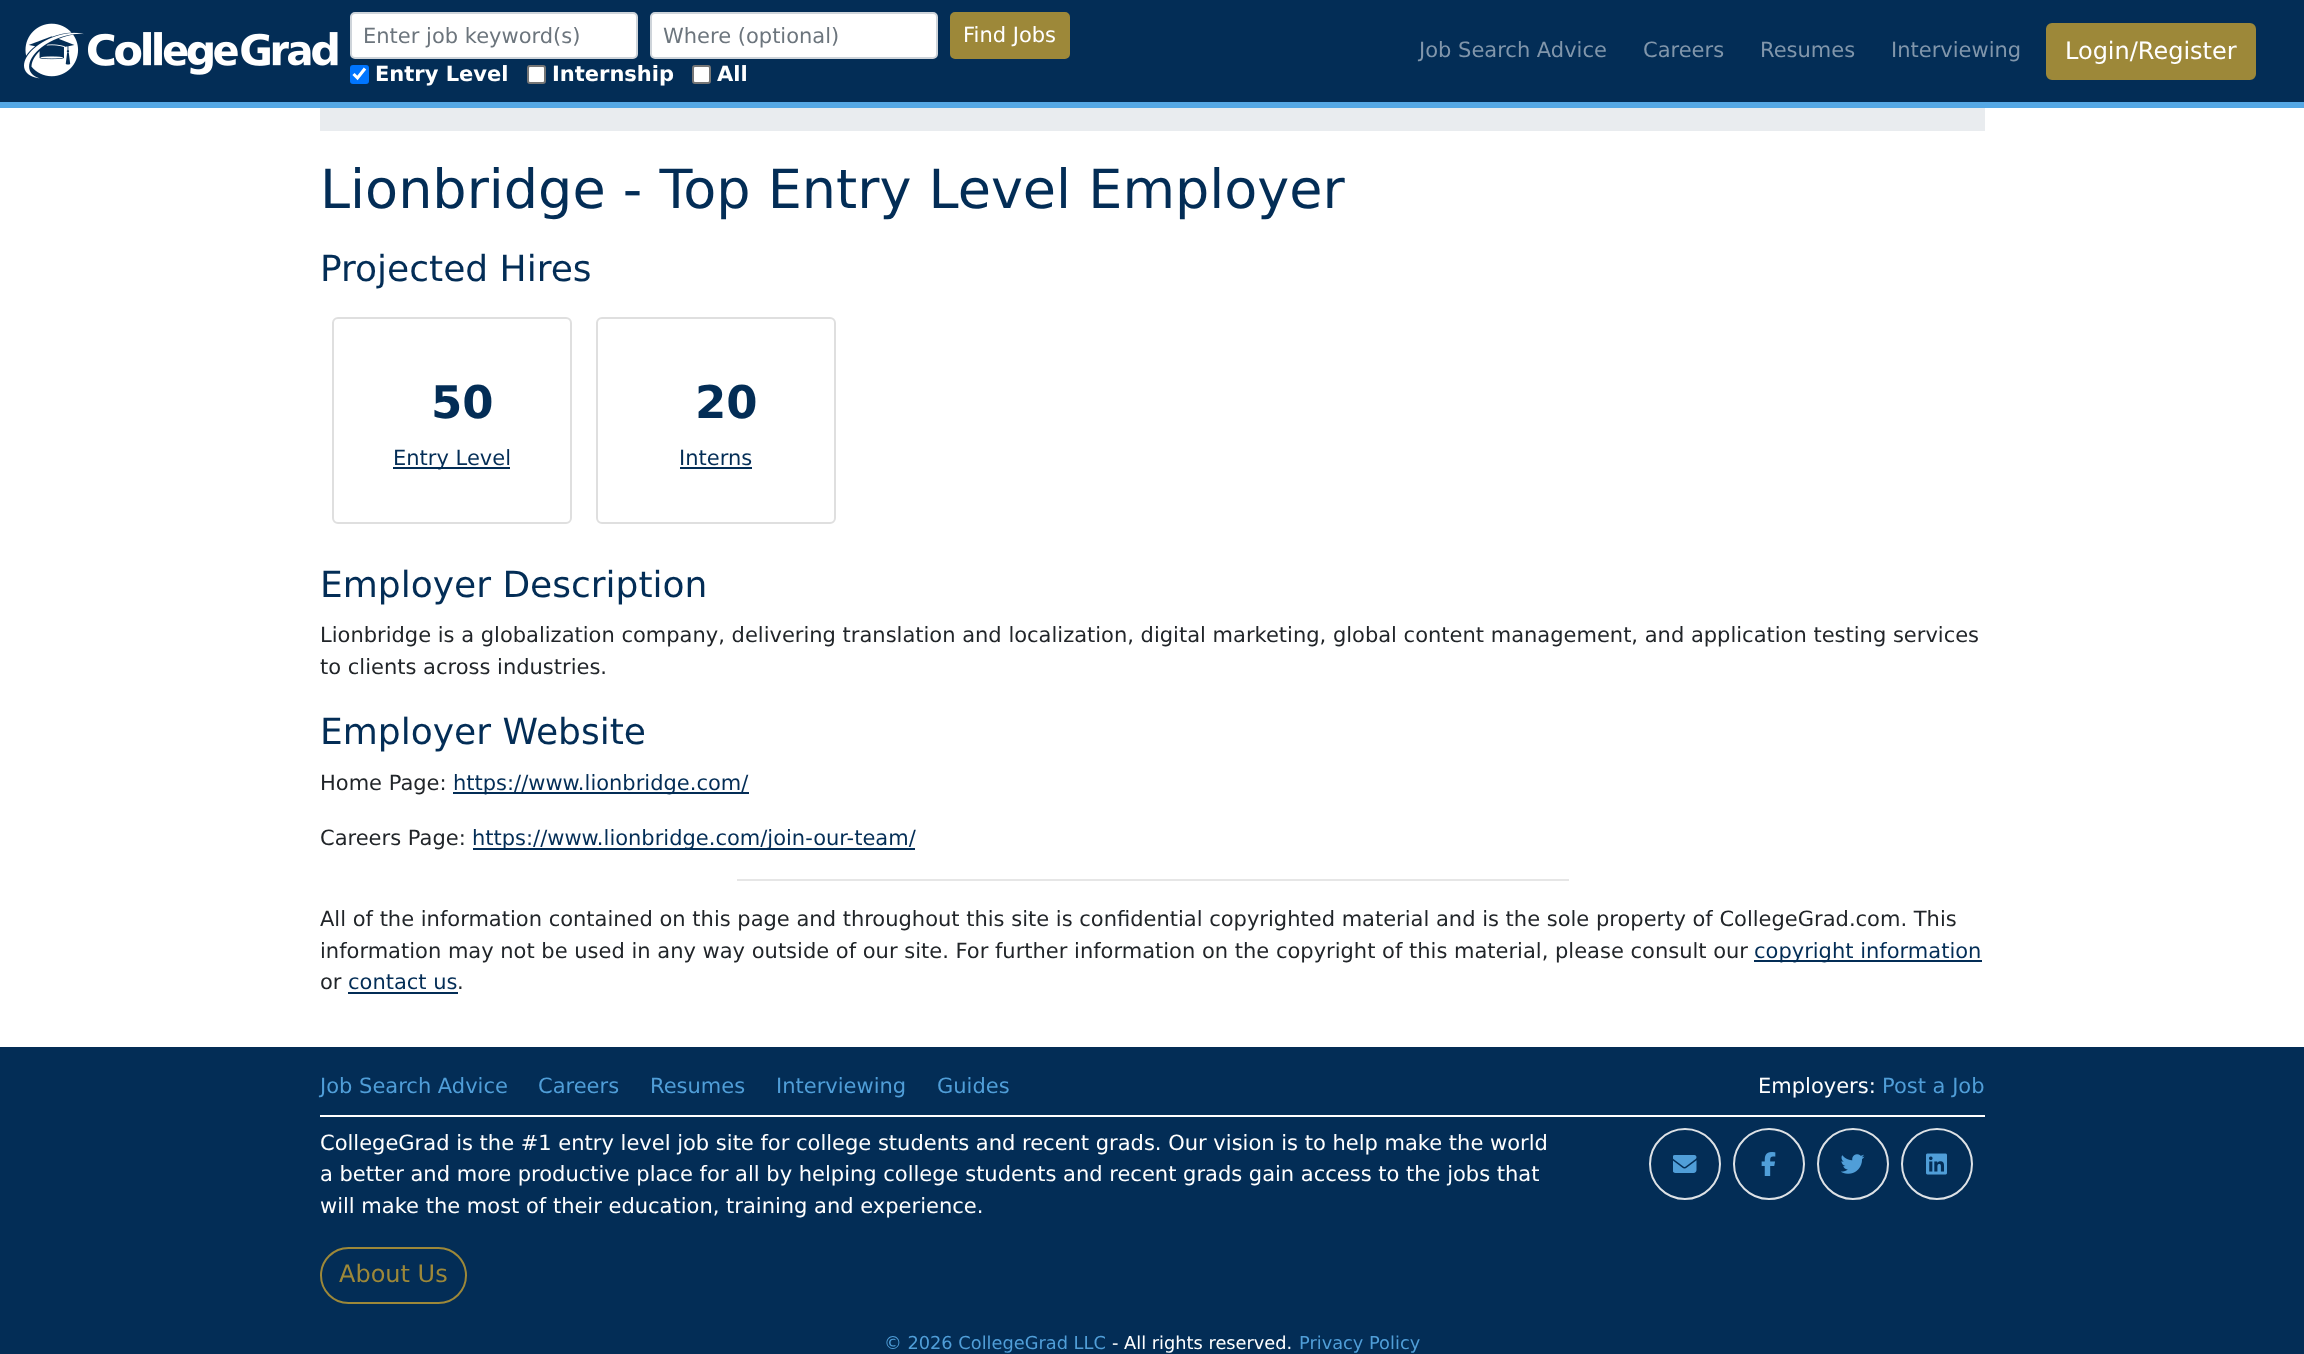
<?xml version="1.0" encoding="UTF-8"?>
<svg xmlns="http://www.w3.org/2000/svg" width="2304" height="1354">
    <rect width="100%" height="100%" fill="#FFFFFF"/>
    <rect x="0" y="0" width="2304" height="102" fill="#032D56"/>
    <rect x="0" y="102" width="2304" height="6" fill="#55A8E5"/>
    <image x="24" y="23" width="314" height="56" href="img_01.png"/>
    <rect x="351" y="13" width="286" height="45" rx="4" fill="#FFFFFF" stroke="#CED4DA" stroke-width="2"/>
    <text x="363" y="43" font-family="DejaVu Sans" font-size="21" fill="#6C757D">Enter job keyword(s)</text>
    <rect x="651" y="13" width="286" height="45" rx="4" fill="#FFFFFF" stroke="#CED4DA" stroke-width="2"/>
    <text x="663" y="43" font-family="DejaVu Sans" font-size="21" fill="#6C757D">Where (optional)</text>
    <rect x="951" y="13" width="118" height="45" rx="4" fill="#9D8839" stroke="#9D8839" stroke-width="2"/>
    <text x="963" y="42" font-family="DejaVu Sans" font-size="21" fill="#FFFFFF">Find Jobs</text>
    <rect x="350" y="65" width="19" height="19" rx="3" fill="#0075FF"/>
    <path d="M 353.5 74 L 357.5 78 L 365 68.5" fill="none" stroke="#FFFFFF" stroke-width="3.1"/>
    <text x="375" y="81" font-family="DejaVu Sans" font-size="21" font-weight="700" fill="#FFFFFF">Entry Level</text>
    <rect x="528" y="66" width="17" height="17" rx="2" fill="#FFFFFF" stroke="#767676" stroke-width="2"/>
    <text x="552" y="81" font-family="DejaVu Sans" font-size="21" font-weight="700" fill="#FFFFFF">Internship</text>
    <rect x="693" y="66" width="17" height="17" rx="2" fill="#FFFFFF" stroke="#767676" stroke-width="2"/>
    <text x="717" y="81" font-family="DejaVu Sans" font-size="21" font-weight="700" fill="#FFFFFF">All</text>
    <text x="1419" y="57" font-family="DejaVu Sans" font-size="21" fill="#8196AB">Job Search Advice</text>
    <text x="1643" y="57" font-family="DejaVu Sans" font-size="21" fill="#8196AB">Careers</text>
    <text x="1760" y="57" font-family="DejaVu Sans" font-size="21" fill="#8196AB">Resumes</text>
    <text x="1891" y="57" font-family="DejaVu Sans" font-size="21" fill="#8196AB">Interviewing</text>
    <rect x="2047" y="24" width="208" height="55" rx="5" fill="#9D8839" stroke="#9D8839" stroke-width="2"/>
    <text x="2065" y="59" font-family="DejaVu Sans" font-size="24" fill="#FFFFFF">Login/Register</text>
    <rect x="320" y="108" width="1665" height="23" fill="#E9ECEF"/>
    <text x="320" y="208" font-family="DejaVu Sans" font-size="54" fill="#032D56">Lionbridge - Top Entry Level Employer</text>
    <text x="320" y="281" font-family="DejaVu Sans" font-size="36" fill="#032D56">Projected Hires</text>
    <rect x="333" y="318" width="238" height="205" rx="5" fill="none" stroke="#DFDFDF" stroke-width="2"/>
    <text x="431" y="418" font-family="DejaVu Sans" font-size="45" font-weight="700" fill="#032D56">50</text>
    <rect x="393" y="467" width="117" height="2" fill="#032D56"/>
    <text x="393" y="465" font-family="DejaVu Sans" font-size="21" fill="#032D56">Entry Level</text>
    <rect x="597" y="318" width="238" height="205" rx="5" fill="none" stroke="#DFDFDF" stroke-width="2"/>
    <text x="695" y="418" font-family="DejaVu Sans" font-size="45" font-weight="700" fill="#032D56">20</text>
    <text x="679" y="465" font-family="DejaVu Sans" font-size="21" fill="#032D56">Interns</text>
    <rect x="680" y="467" width="72" height="2" fill="#032D56"/>
    <text x="320" y="597" font-family="DejaVu Sans" font-size="36" fill="#032D56">Employer Description</text>
    <text font-family="DejaVu Sans" font-size="21" fill="#212529">
        <tspan x="320" y="642">Lionbridge is a globalization company, delivering translation and localization, digital marketing, global content management, and application testing services</tspan>
        <tspan x="320" y="674">to clients across industries.</tspan>
    </text>
    <text x="320" y="744" font-family="DejaVu Sans" font-size="36" fill="#032D56">Employer Website</text>
    <text x="320" y="790" font-family="DejaVu Sans" font-size="21" fill="#212529">Home Page:</text>
    <rect x="453" y="792" width="296" height="2" fill="#032D56"/>
    <text x="453" y="790" font-family="DejaVu Sans" font-size="21" fill="#032D56">https://www.lionbridge.com/</text>
    <text x="320" y="845" font-family="DejaVu Sans" font-size="21" fill="#212529">Careers Page:</text>
    <rect x="473" y="848" width="442" height="2" fill="#032D56"/>
    <text x="472" y="845" font-family="DejaVu Sans" font-size="21" fill="#032D56">https://www.lionbridge.com/join-our-team/</text>
    <rect x="737" y="879" width="832" height="2" fill="#E6E6E6"/>
    <text font-family="DejaVu Sans" font-size="21" fill="#212529">
        <tspan x="320" y="926">All of the information contained on this page and throughout this site is confidential copyrighted material and is the sole property of CollegeGrad.com. This</tspan>
        <tspan x="320" y="958">information may not be used in any way outside of our site. For further information on the copyright of this material, please consult our</tspan>
    </text>
    <rect x="1754" y="960" width="228" height="2" fill="#032D56"/>
    <text x="1754" y="958" font-family="DejaVu Sans" font-size="21" fill="#032D56">copyright information</text>
    <text x="320" y="989" font-family="DejaVu Sans" font-size="21" fill="#212529">or</text>
    <text x="348" y="989" font-family="DejaVu Sans" font-size="21" fill="#032D56">contact us</text>
    <rect x="348" y="992" width="110" height="2" fill="#032D56"/>
    <text x="457" y="989" font-family="DejaVu Sans" font-size="21" fill="#212529">.</text>
    <rect x="0" y="1047" width="2304" height="307" fill="#032D56"/>
    <rect x="320" y="1115" width="1665" height="2" fill="#FFFFFF"/>
    <text x="320" y="1093" font-family="DejaVu Sans" font-size="21" fill="#509ED8">Job Search Advice</text>
    <text x="538" y="1093" font-family="DejaVu Sans" font-size="21" fill="#509ED8">Careers</text>
    <text x="650" y="1093" font-family="DejaVu Sans" font-size="21" fill="#509ED8">Resumes</text>
    <text x="776" y="1093" font-family="DejaVu Sans" font-size="21" fill="#509ED8">Interviewing</text>
    <text x="937" y="1093" font-family="DejaVu Sans" font-size="21" fill="#509ED8">Guides</text>
    <text x="1758" y="1093" font-family="DejaVu Sans" font-size="21" fill="#FFFFFF">Employers:</text>
    <text x="1882" y="1093" font-family="DejaVu Sans" font-size="21" fill="#509ED8">Post a Job</text>
    <text font-family="DejaVu Sans" font-size="21" fill="#FFFFFF">
        <tspan x="320" y="1150">CollegeGrad is the #1 entry level job site for college students and recent grads. Our vision is to help make the world</tspan>
        <tspan x="320" y="1181">a better and more productive place for all by helping college students and recent grads gain access to the jobs that</tspan>
        <tspan x="320" y="1213">will make the most of their education, training and experience.</tspan>
    </text>
    <rect x="321" y="1248" width="145" height="55" rx="27.5" fill="none" stroke="#9D8839" stroke-width="2"/>
    <text x="339" y="1282" font-family="DejaVu Sans" font-size="24" fill="#9D8839">About Us</text>
    <circle cx="1685" cy="1164" r="35" fill="none" stroke="#DEE2E6" stroke-width="2"/>
    <image x="1673" y="1155" width="24" height="18" href="img_02.png"/>
    <circle cx="1769" cy="1164" r="35" fill="none" stroke="#DEE2E6" stroke-width="2"/>
    <image x="1761" y="1152" width="15" height="24" href="img_03.png"/>
    <circle cx="1853" cy="1164" r="35" fill="none" stroke="#DEE2E6" stroke-width="2"/>
    <image x="1841" y="1154" width="24" height="20" href="img_04.png"/>
    <circle cx="1937" cy="1164" r="35" fill="none" stroke="#DEE2E6" stroke-width="2"/>
    <image x="1926" y="1153" width="21" height="22" href="img_05.png"/>
    <text x="884" y="1349" font-family="DejaVu Sans" font-size="17.8" fill="#509ED8">© 2026 CollegeGrad LLC</text>
    <text x="1112" y="1349" font-family="DejaVu Sans" font-size="17.8" fill="#FFFFFF">- All rights reserved.</text>
    <text x="1299" y="1349" font-family="DejaVu Sans" font-size="17.8" fill="#509ED8">Privacy Policy</text>
</svg>
